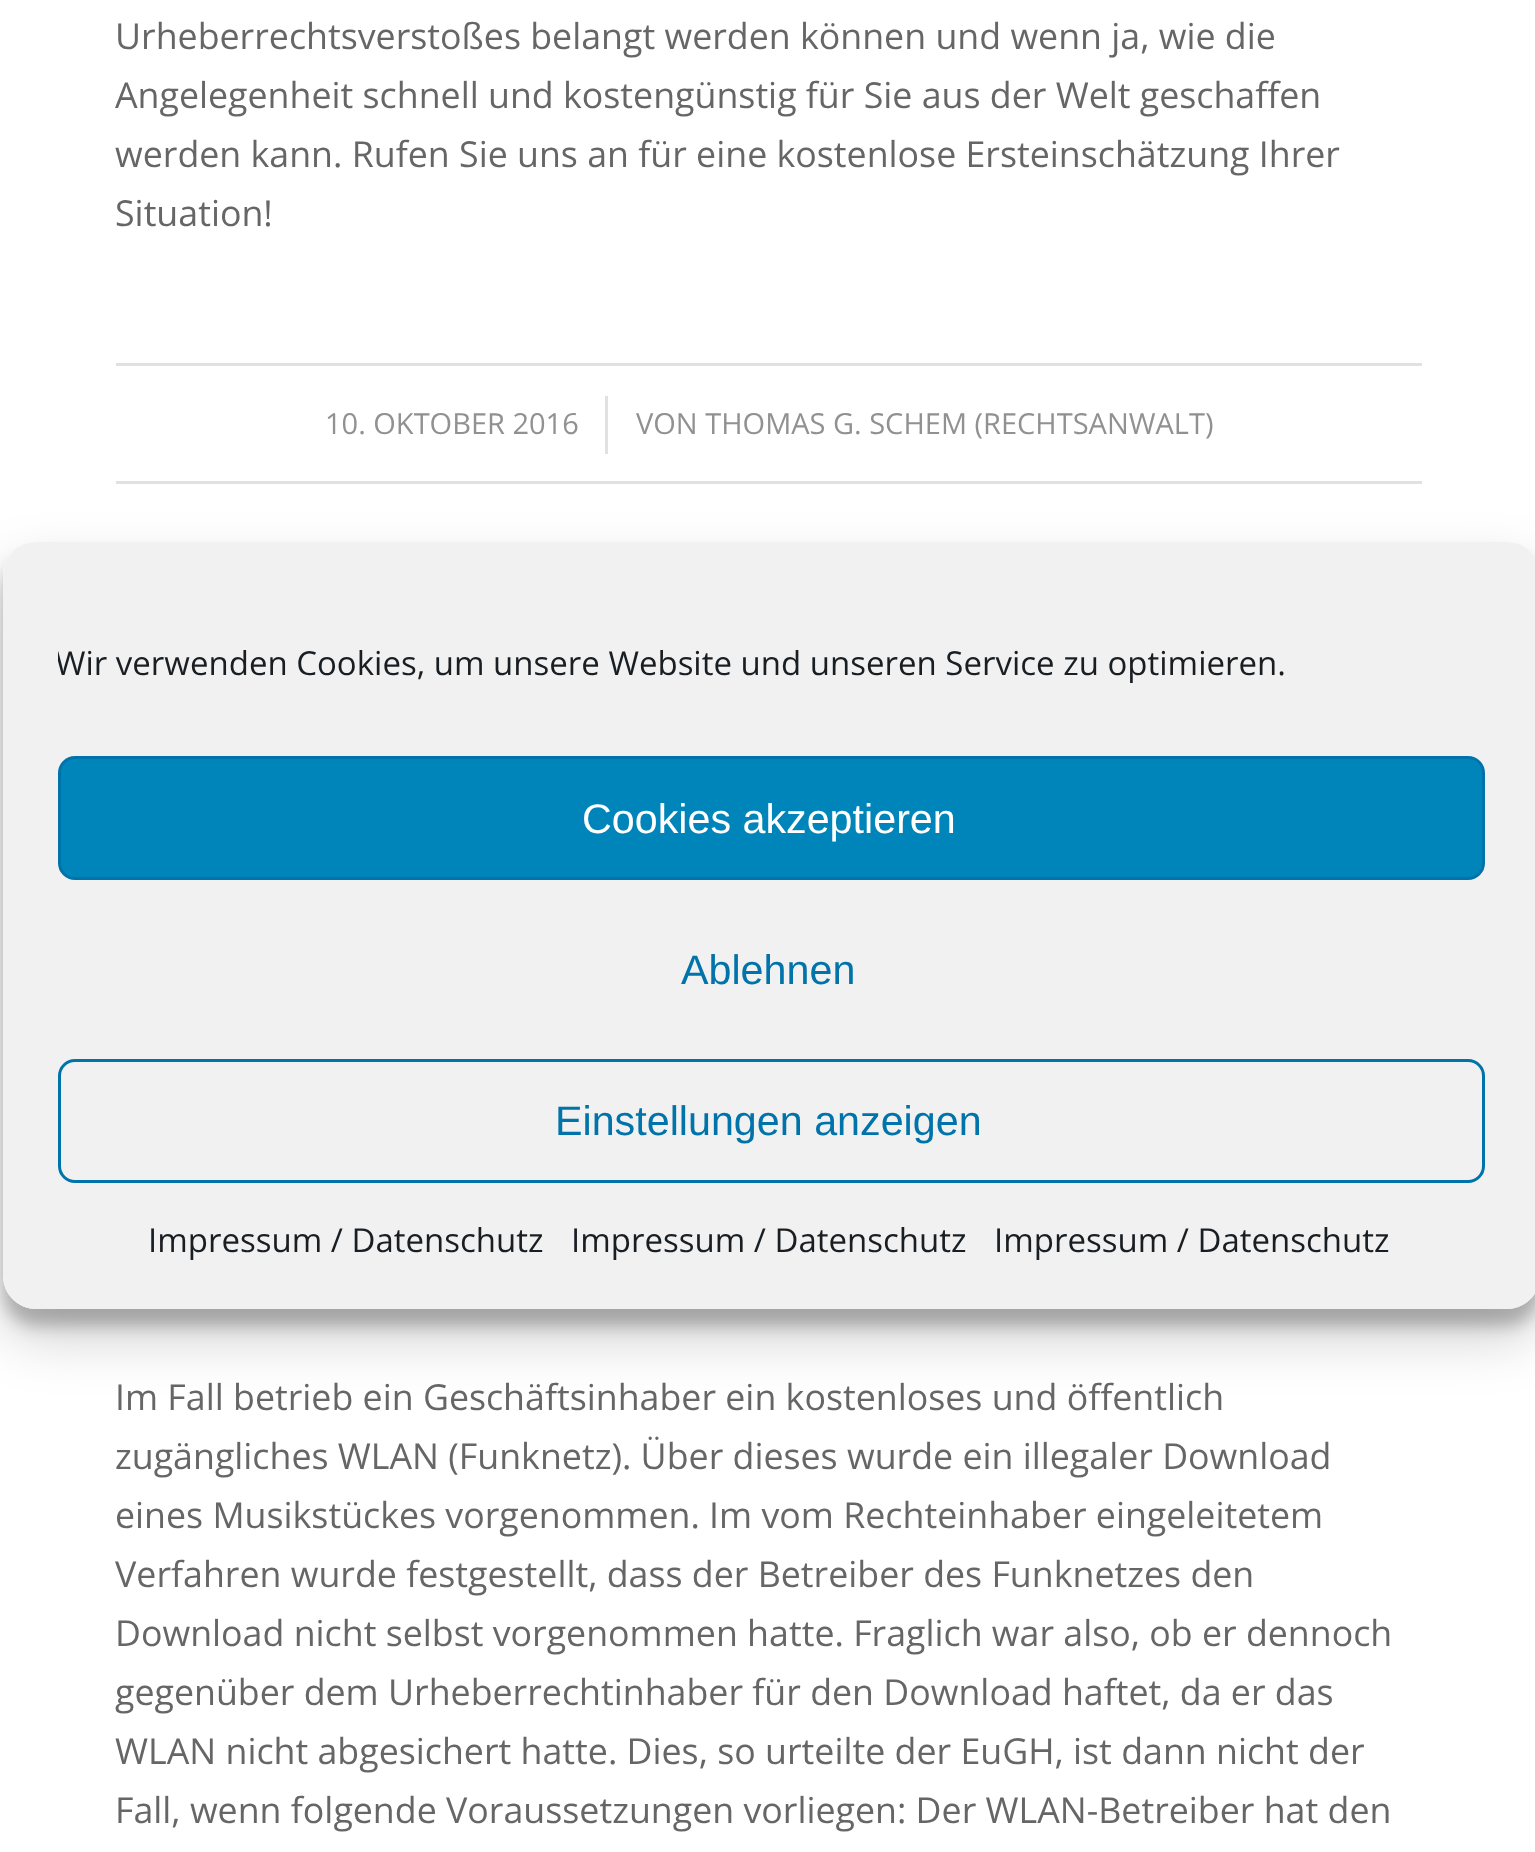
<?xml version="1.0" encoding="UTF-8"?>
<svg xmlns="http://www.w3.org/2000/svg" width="1535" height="1852">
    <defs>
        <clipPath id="clip1"><path d="M 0 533 H 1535 V 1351 H 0 Z M 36 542 H 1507 C 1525 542 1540 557 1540 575 V 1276 C 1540 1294 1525 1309 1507 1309 H 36 C 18 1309 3 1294 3 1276 V 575 C 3 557 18 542 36 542 Z" clip-rule="evenodd"/></clipPath>
        <filter id="blur1" x="-50%" y="-200%" width="200%" height="500%"><feGaussianBlur stdDeviation="8"/></filter>
        <clipPath id="clip2"><path d="M 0 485 H 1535 V 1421 H 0 Z M 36 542 H 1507 C 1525 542 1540 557 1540 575 V 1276 C 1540 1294 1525 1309 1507 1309 H 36 C 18 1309 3 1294 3 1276 V 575 C 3 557 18 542 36 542 Z" clip-rule="evenodd"/></clipPath>
        <filter id="blur2" x="-50%" y="-200%" width="200%" height="500%"><feGaussianBlur stdDeviation="27.5"/></filter>
        <clipPath id="clip3"><rect x="58" y="638" width="1427" height="63"/></clipPath>
    </defs>
    <rect width="100%" height="100%" fill="#FFFFFF"/>
    <text font-family="Open Sans" font-size="35.75" fill="#666666">
        <tspan x="115" y="49">Urheberrechtsverstoßes belangt werden können und wenn ja, wie die</tspan>
        <tspan x="115" y="108">Angelegenheit schnell und kostengünstig für Sie aus der Welt geschaffen</tspan>
        <tspan x="115" y="167">werden kann. Rufen Sie uns an für eine kostenlose Ersteinschätzung Ihrer</tspan>
        <tspan x="115" y="226">Situation!</tspan>
    </text>
    <rect x="116" y="363" width="1306" height="3" fill="#E1E1E1"/>
    <rect x="116" y="481" width="1306" height="3" fill="#E1E1E1"/>
    <text x="325" y="434" font-family="Open Sans" font-size="29" fill="#919191">10. OKTOBER 2016</text>
    <rect x="605" y="396" width="3" height="58" fill="#E1E1E1"/>
    <text x="636" y="434" font-family="Open Sans" font-size="29" fill="#919191">VON THOMAS G. SCHEM (RECHTSANWALT)</text>
    <text font-family="Open Sans" font-size="35.75" fill="#666666">
        <tspan x="115" y="1410">Im Fall betrieb ein Geschäftsinhaber ein kostenloses und öffentlich</tspan>
        <tspan x="115" y="1469">zugängliches WLAN (Funknetz). Über dieses wurde ein illegaler Download</tspan>
        <tspan x="115" y="1528">eines Musikstückes vorgenommen. Im vom Rechteinhaber eingeleitetem</tspan>
        <tspan x="115" y="1587">Verfahren wurde festgestellt, dass der Betreiber des Funknetzes den</tspan>
        <tspan x="115" y="1646">Download nicht selbst vorgenommen hatte. Fraglich war also, ob er dennoch</tspan>
        <tspan x="115" y="1705">gegenüber dem Urheberrechtinhaber für den Download haftet, da er das</tspan>
        <tspan x="115" y="1764">WLAN nicht abgesichert hatte. Dies, so urteilte der EuGH, ist dann nicht der</tspan>
        <tspan x="115" y="1823">Fall, wenn folgende Voraussetzungen vorliegen: Der WLAN-Betreiber hat den</tspan>
    </text>
    <g clip-path="url(#clip1)">
        <rect x="3" y="558" width="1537" height="768" rx="33" fill="#000000" fill-opacity="0.23" filter="url(#blur1)"/>
    </g>
    <g clip-path="url(#clip2)">
        <rect x="3" y="569" width="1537" height="768" rx="33" fill="#000000" fill-opacity="0.19" filter="url(#blur2)"/>
    </g>
    <rect x="3" y="542" width="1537" height="767" rx="33" fill="#F1F1F1"/>
    <g clip-path="url(#clip3)">
        <text x="55" y="675" font-family="Open Sans" font-size="33" fill="#191E23">Wir verwenden Cookies, um unsere Website und unseren Service zu optimieren.</text>
    </g>
    <rect x="59.5" y="757.5" width="1424" height="121" rx="15.5" fill="#0085BA" stroke="#0073AA" stroke-width="3"/>
    <text x="582" y="833" font-family="Liberation Sans" font-size="41.25" fill="#FFFFFF">Cookies akzeptieren</text>
    <text x="681" y="984" font-family="Liberation Sans" font-size="41.25" fill="#0073AA">Ablehnen</text>
    <rect x="59.5" y="1060.5" width="1424" height="121" rx="15.5" fill="none" stroke="#0073AA" stroke-width="3"/>
    <text x="555" y="1135" font-family="Liberation Sans" font-size="41.25" fill="#0073AA">Einstellungen anzeigen</text>
    <text x="148" y="1252" font-family="Open Sans" font-size="33" fill="#191E23">Impressum / Datenschutz</text>
    <text x="571" y="1252" font-family="Open Sans" font-size="33" fill="#191E23">Impressum / Datenschutz</text>
    <text x="994" y="1252" font-family="Open Sans" font-size="33" fill="#191E23">Impressum / Datenschutz</text>
</svg>
